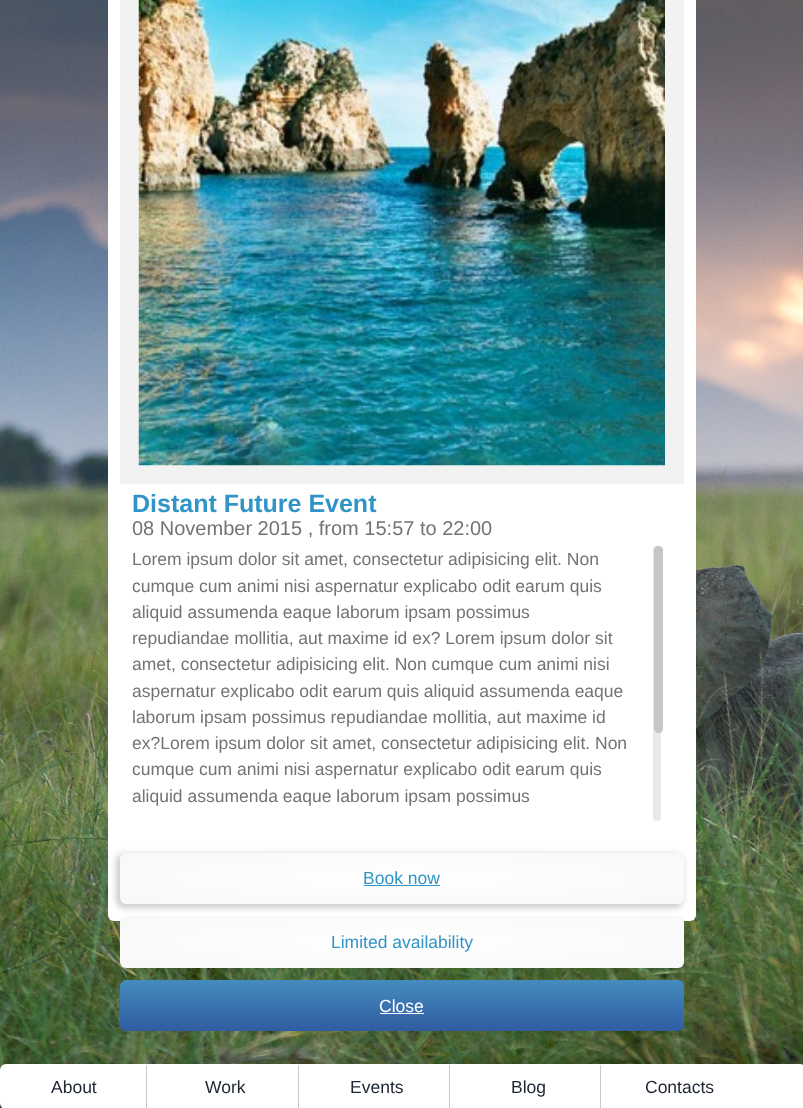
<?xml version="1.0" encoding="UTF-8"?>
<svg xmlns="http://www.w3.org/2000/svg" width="803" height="1108">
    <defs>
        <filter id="blur1" x="-50%" y="-200%" width="200%" height="500%"><feGaussianBlur stdDeviation="3"/></filter>
        <radialGradient id="g1" gradientUnits="userSpaceOnUse" cx="0" cy="0" r="1" gradientTransform="matrix(399 0 0 36 402 878)"><stop offset="0" stop-color="#FFFFFF"/><stop offset="1" stop-color="#F8F8F8"/></radialGradient>
        <radialGradient id="g2" gradientUnits="userSpaceOnUse" cx="0" cy="0" r="1" gradientTransform="matrix(399 0 0 36 402 942)"><stop offset="0" stop-color="#FFFFFF"/><stop offset="1" stop-color="#F8F8F8"/></radialGradient>
        <linearGradient id="g3" gradientUnits="userSpaceOnUse" x1="402" y1="980" x2="402" y2="1031"><stop offset="0" stop-color="#448CBF"/><stop offset="1" stop-color="#305CA2"/></linearGradient>
    </defs>
    <rect width="100%" height="100%" fill="#FFFFFF"/>
    <image x="0" y="0" width="803" height="1108" href="img_01.png"/>
    <rect x="108" y="-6" width="588" height="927" rx="6" fill="#FFFFFF"/>
    <rect x="129.5" y="-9.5" width="545" height="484" fill="none" stroke="#F2F2F2" stroke-width="19"/>
    <image x="138" y="0" width="527" height="466" href="img_02.png"/>
    <text x="132" y="512" font-family="Liberation Sans" font-size="25" font-weight="700" fill="#3094C7">Distant Future Event</text>
    <text x="132" y="535" font-family="Liberation Sans" font-size="20" fill="#737373">08 November 2015 , from 15:57 to 22:00</text>
    <text font-family="Liberation Sans" font-size="17.5" fill="#737373">
        <tspan x="132" y="565">Lorem ipsum dolor sit amet, consectetur adipisicing elit. Non</tspan>
        <tspan x="132" y="592">cumque cum animi nisi aspernatur explicabo odit earum quis</tspan>
        <tspan x="132" y="618">aliquid assumenda eaque laborum ipsam possimus</tspan>
        <tspan x="132" y="644">repudiandae mollitia, aut maxime id ex? Lorem ipsum dolor sit</tspan>
        <tspan x="132" y="670">amet, consectetur adipisicing elit. Non cumque cum animi nisi</tspan>
        <tspan x="132" y="697">aspernatur explicabo odit earum quis aliquid assumenda eaque</tspan>
        <tspan x="132" y="723">laborum ipsam possimus repudiandae mollitia, aut maxime id</tspan>
        <tspan x="132" y="749">ex?Lorem ipsum dolor sit amet, consectetur adipisicing elit. Non</tspan>
        <tspan x="132" y="775">cumque cum animi nisi aspernatur explicabo odit earum quis</tspan>
        <tspan x="132" y="802">aliquid assumenda eaque laborum ipsam possimus</tspan>
    </text>
    <rect x="653" y="546" width="8" height="275" rx="4" fill="#E9E9E9"/>
    <rect x="654" y="546" width="9" height="187" rx="4.5" fill="#C6C6C6"/>
    <path d="M 658.5 546 C 661 546 663 548 663 550.5 V 553 H 657.5 C 655.5 553 654 551.5 654 549.5 V 550.5 C 654 548 656 546 658.5 546 Z" fill="#C6C6C6"/>
    <rect x="116" y="854" width="567" height="54" rx="8" fill="#000000" fill-opacity="0.2" filter="url(#blur1)"/>
    <rect x="120" y="853" width="564" height="51" rx="6" fill="url(#g1)"/>
    <text x="363" y="884" font-family="Liberation Sans" font-size="17.5" fill="#3094C7">Book now</text>
    <rect x="364" y="885" width="76" height="1" fill="#3094C7"/>
    <rect x="120" y="916" width="564" height="52" rx="6" fill="url(#g2)"/>
    <text x="331" y="948" font-family="Liberation Sans" font-size="17.5" fill="#3094C7">Limited availability</text>
    <rect x="120" y="980" width="564" height="51" rx="6" fill="url(#g3)"/>
    <text x="379" y="1012" font-family="Liberation Sans" font-size="17.5" fill="#FFFFFF">Close</text>
    <rect x="380" y="1013" width="44" height="1" fill="#FFFFFF"/>
    <rect x="-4" y="1065" width="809" height="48" rx="8" fill="#000000" fill-opacity="0.2" filter="url(#blur1)"/>
    <rect x="0" y="1064" width="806" height="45" rx="6" fill="#FFFFFF"/>
    <rect x="146" y="1065" width="1" height="43" fill="#CCCAC7"/>
    <text x="51" y="1093" font-family="Liberation Sans" font-size="17.5" fill="#1D2532">About</text>
    <rect x="298" y="1065" width="1" height="43" fill="#CCCAC7"/>
    <text x="205" y="1093" font-family="Liberation Sans" font-size="17.5" fill="#1D2532">Work</text>
    <rect x="449" y="1065" width="1" height="43" fill="#CCCAC7"/>
    <text x="350" y="1093" font-family="Liberation Sans" font-size="17.5" fill="#1D2532">Events</text>
    <rect x="600" y="1065" width="1" height="43" fill="#CCCAC7"/>
    <text x="511" y="1093" font-family="Liberation Sans" font-size="17.5" fill="#1D2532">Blog</text>
    <text x="645" y="1093" font-family="Liberation Sans" font-size="17.5" fill="#1D2532">Contacts</text>
</svg>
